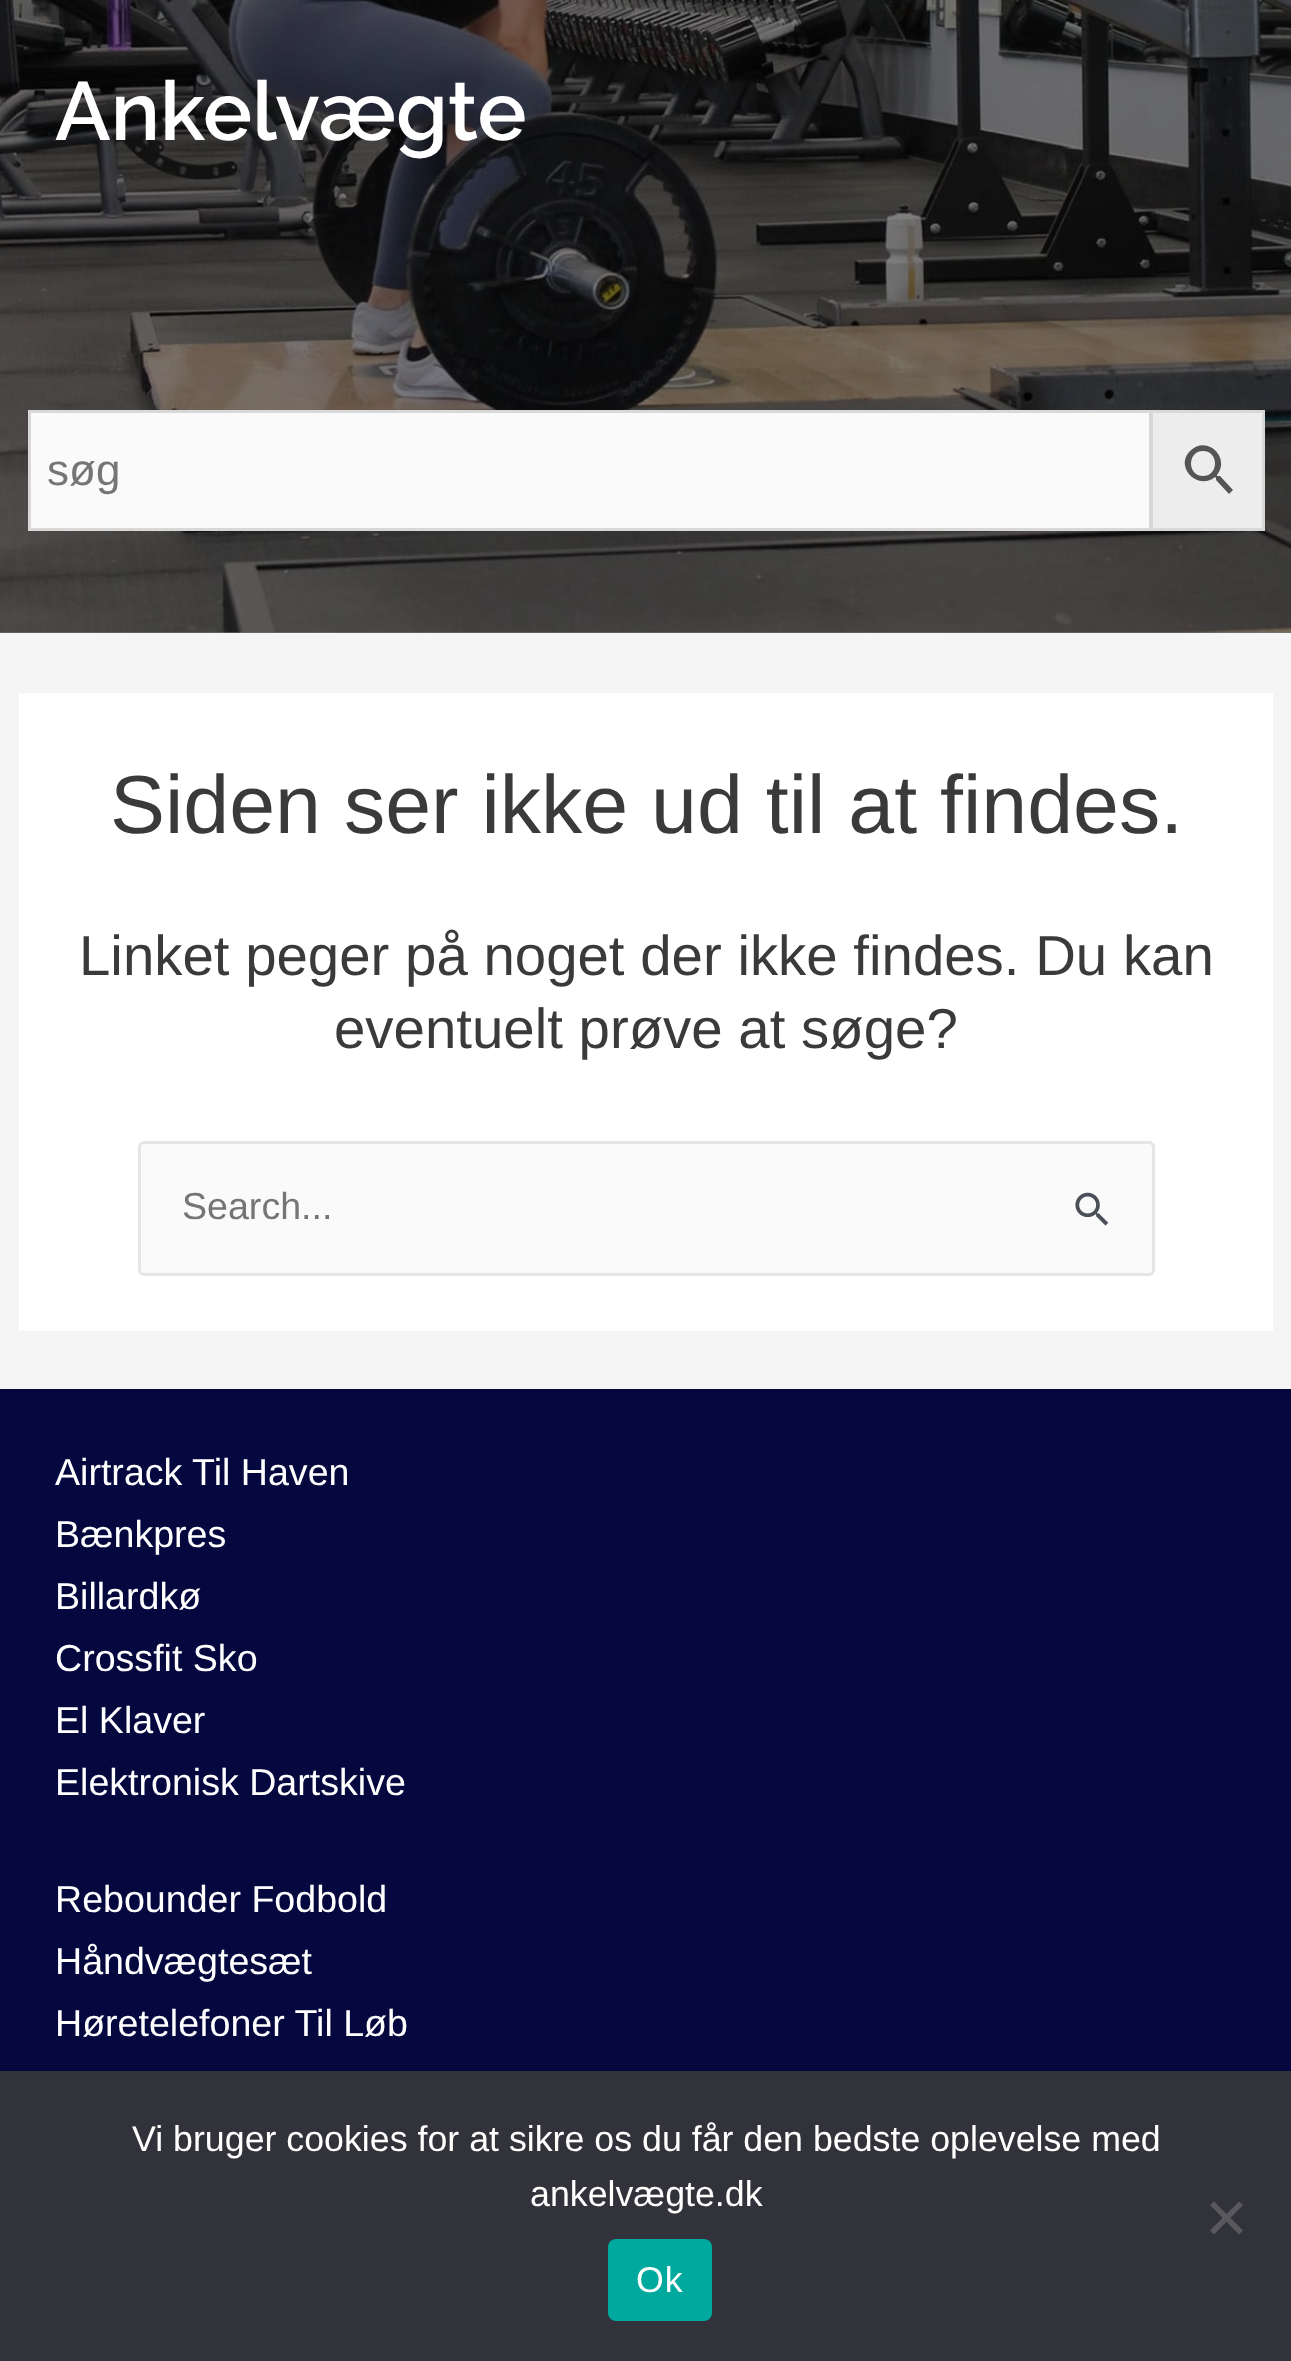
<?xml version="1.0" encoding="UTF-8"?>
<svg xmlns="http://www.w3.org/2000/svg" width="1291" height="2361">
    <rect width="100%" height="100%" fill="#F5F5F5"/>
    <rect x="0" y="632" width="1291" height="1" fill="#7B7B7B"/>
    <image x="0" y="0" width="1291" height="633" href="img_01.png"/>
    <text x="55" y="140" font-family="Raleway" font-size="82.5" font-weight="600" fill="#FFFFFF">Ankelvægte</text>
    <rect x="1151.5" y="411.5" width="112" height="118" fill="#EDEDED" stroke="#D8D8D8" stroke-width="3"/>
    <rect x="29.5" y="411.5" width="1121" height="118" fill="#FAFAFA" stroke="#D8D8D8" stroke-width="3"/>
    <text x="47" y="485" font-family="Liberation Sans" font-size="44" fill="#757575">søg</text>
    <path d="M 1220 476 H 1217 V 475 C 1231 458 1207 434 1190 451 C 1174 467 1198 491 1215 477 L 1216 478 V 480 L 1229 494 L 1233 490 Z M 1203 476 C 1187 476 1187 451 1203 451 C 1219 451 1219 476 1203 476 Z" fill="#555555"/>
    <rect x="19" y="693" width="1254" height="638" fill="#FFFFFF"/>
    <text x="110" y="833" font-family="Liberation Sans" font-size="82.5" fill="#3A3A3A">Siden ser ikke ud til at findes.</text>
    <text x="79" y="975" font-family="Liberation Sans" font-size="56.4" fill="#3A3A3A">Linket peger på noget der ikke findes. Du kan</text>
    <text x="334" y="1048" font-family="Liberation Sans" font-size="56.4" fill="#3A3A3A">eventuelt prøve at søge?</text>
    <rect x="139.5" y="1142.5" width="1014" height="132" rx="4.5" fill="#FAFAFA" stroke="#E5E5E5" stroke-width="3"/>
    <text x="182" y="1219" font-family="Liberation Sans" font-size="37.6" fill="#757575">Search...</text>
    <image x="1075" y="1192" width="34" height="34" href="img_02.png"/>
    <rect x="0" y="1389" width="1291" height="682" fill="#05083E"/>
    <text font-family="Liberation Sans" font-size="37.6" fill="#FFFFFF">
        <tspan x="55" y="1485">Airtrack Til Haven</tspan>
        <tspan x="55" y="1547">Bænkpres</tspan>
        <tspan x="55" y="1609">Billardkø</tspan>
        <tspan x="55" y="1671">Crossfit Sko</tspan>
        <tspan x="55" y="1733">El Klaver</tspan>
        <tspan x="55" y="1795">Elektronisk Dartskive</tspan>
    </text>
    <text font-family="Liberation Sans" font-size="37.6" fill="#FFFFFF">
        <tspan x="55" y="1912">Rebounder Fodbold</tspan>
        <tspan x="55" y="1974">Håndvægtesæt</tspan>
        <tspan x="55" y="2036">Høretelefoner Til Løb</tspan>
    </text>
    <rect x="0" y="2071" width="1291" height="290" fill="#32323A"/>
    <text x="132" y="2151" font-family="Liberation Sans" font-size="35.75" fill="#FFFFFF">Vi bruger cookies for at sikre os du får den bedste oplevelse med</text>
    <text x="530" y="2206" font-family="Liberation Sans" font-size="35.75" fill="#FFFFFF">ankelvægte.dk</text>
    <path d="M 1239 2201.5 L 1243 2205 L 1214 2234.5 L 1210 2230.5 Z" fill="#59595D"/>
    <path d="M 1210 2205 L 1214 2201.5 L 1243 2230.5 L 1239 2234.5 Z" fill="#59595D"/>
    <rect x="608" y="2239" width="104" height="82" rx="8" fill="#00A99D"/>
    <text x="636" y="2292" font-family="Liberation Sans" font-size="35.75" letter-spacing="1" fill="#FFFFFF">Ok</text>
</svg>
